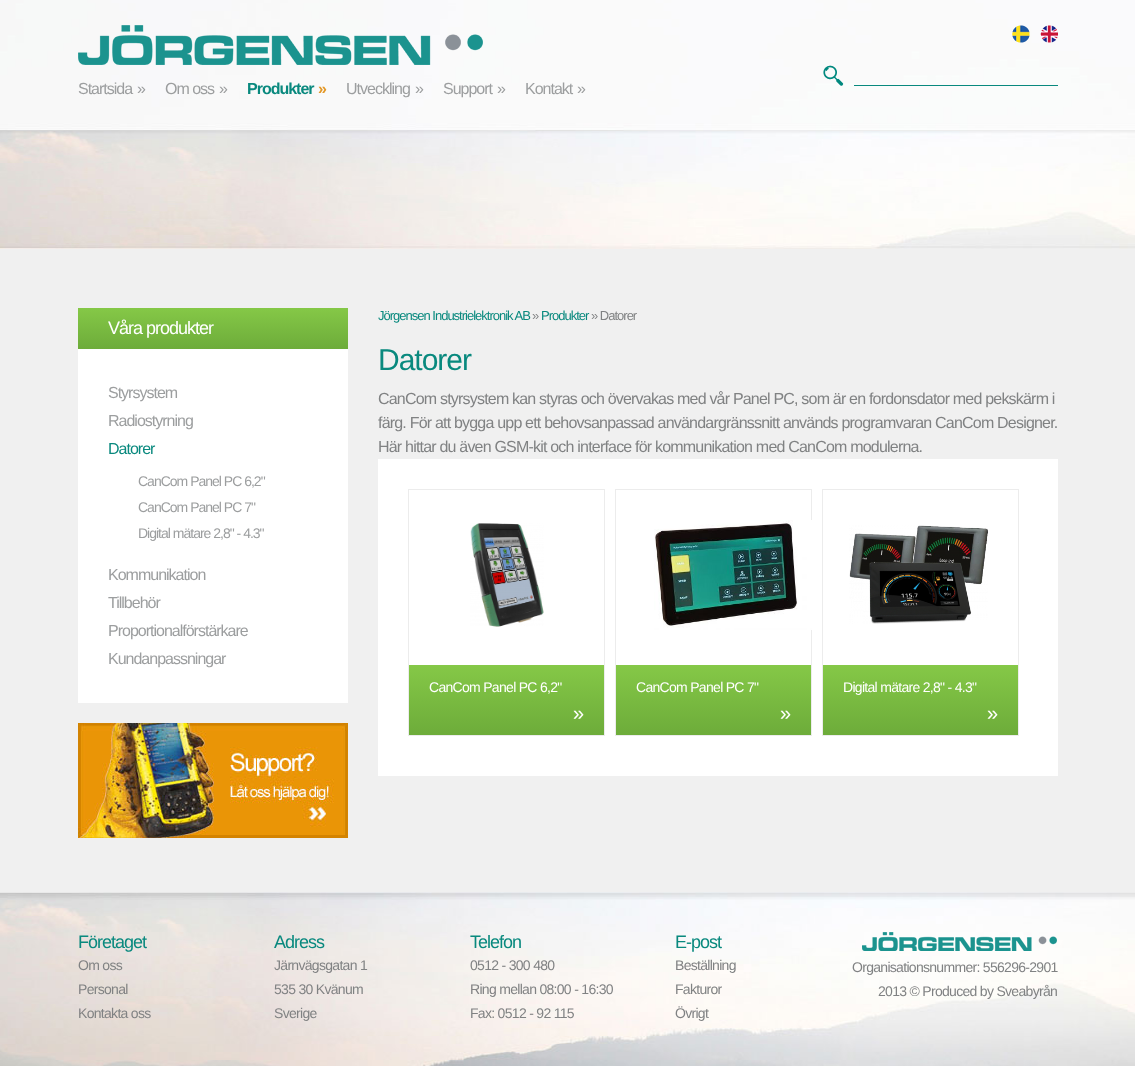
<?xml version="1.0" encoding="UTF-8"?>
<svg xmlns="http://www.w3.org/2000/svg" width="1135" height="1066">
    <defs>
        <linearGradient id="g1" gradientUnits="userSpaceOnUse" x1="213" y1="308" x2="213" y2="349"><stop offset="0" stop-color="#85C847"/><stop offset="1" stop-color="#6DAC3A"/></linearGradient>
        <linearGradient id="g2" gradientUnits="userSpaceOnUse" x1="507" y1="665" x2="507" y2="735"><stop offset="0" stop-color="#85C847"/><stop offset="1" stop-color="#6DAC3A"/></linearGradient>
        <linearGradient id="g3" gradientUnits="userSpaceOnUse" x1="714" y1="665" x2="714" y2="735"><stop offset="0" stop-color="#85C847"/><stop offset="1" stop-color="#6DAC3A"/></linearGradient>
        <linearGradient id="g4" gradientUnits="userSpaceOnUse" x1="921" y1="665" x2="921" y2="735"><stop offset="0" stop-color="#85C847"/><stop offset="1" stop-color="#6DAC3A"/></linearGradient>
    </defs>
    <rect width="100%" height="100%" fill="#F0F0F0"/>
    <image x="0" y="0" width="1135" height="249" href="img_01.png"/>
    <image x="1012" y="25" width="18" height="18" href="img_02.png"/>
    <image x="1040" y="25" width="18" height="18" href="img_03.png"/>
    <image x="823" y="65" width="21" height="21" href="img_04.png"/>
    <rect x="854" y="85" width="204" height="1" fill="#09897E"/>
    <image x="78" y="25" width="405" height="40" href="img_05.png"/>
    <text x="78" y="94" font-family="Liberation Sans" font-size="16" letter-spacing="-1" fill="#9C9E9F">Startsida</text>
    <text x="137" y="94" font-family="Liberation Sans" font-size="16" letter-spacing="-1" fill="#9C9E9F">»</text>
    <text x="165" y="94" font-family="Liberation Sans" font-size="16" letter-spacing="-1" fill="#9C9E9F">Om oss</text>
    <text x="219" y="94" font-family="Liberation Sans" font-size="16" letter-spacing="-1" fill="#9C9E9F">»</text>
    <text x="247" y="94" font-family="Liberation Sans" font-size="16" font-weight="700" letter-spacing="-1" fill="#09897E">Produkter</text>
    <text x="318" y="94" font-family="Liberation Sans" font-size="16" font-weight="700" letter-spacing="-1" fill="#E39725">»</text>
    <text x="346" y="94" font-family="Liberation Sans" font-size="16" letter-spacing="-1" fill="#9C9E9F">Utveckling</text>
    <text x="415" y="94" font-family="Liberation Sans" font-size="16" letter-spacing="-1" fill="#9C9E9F">»</text>
    <text x="443" y="94" font-family="Liberation Sans" font-size="16" letter-spacing="-1" fill="#9C9E9F">Support</text>
    <text x="497" y="94" font-family="Liberation Sans" font-size="16" letter-spacing="-1" fill="#9C9E9F">»</text>
    <text x="525" y="94" font-family="Liberation Sans" font-size="16" letter-spacing="-1" fill="#9C9E9F">Kontakt</text>
    <text x="577" y="94" font-family="Liberation Sans" font-size="16" letter-spacing="-1" fill="#9C9E9F">»</text>
    <rect x="78" y="308" width="270" height="41" fill="url(#g1)"/>
    <text x="108" y="334" font-family="Liberation Sans" font-size="18" letter-spacing="-1" fill="#FFFFFF">Våra produkter</text>
    <rect x="78" y="349" width="270" height="354" fill="#FFFFFF"/>
    <text font-family="Liberation Sans" font-size="16" letter-spacing="-1" fill="#9C9E9F">
        <tspan x="108" y="398">Styrsystem</tspan>
        <tspan x="108" y="426">Radiostyrning</tspan>
    </text>
    <text x="108" y="454" font-family="Liberation Sans" font-size="16" letter-spacing="-1" fill="#09897E">Datorer</text>
    <text font-family="Liberation Sans" font-size="14" letter-spacing="-1" fill="#9C9E9F">
        <tspan x="138" y="486">CanCom Panel PC 6,2"</tspan>
        <tspan x="138" y="512">CanCom Panel PC 7"</tspan>
        <tspan x="138" y="538">Digital mätare 2,8" - 4.3"</tspan>
    </text>
    <text font-family="Liberation Sans" font-size="16" letter-spacing="-1" fill="#9C9E9F">
        <tspan x="108" y="580">Kommunikation</tspan>
        <tspan x="108" y="608">Tillbehör</tspan>
        <tspan x="108" y="636">Proportionalförstärkare</tspan>
        <tspan x="108" y="664">Kundanpassningar</tspan>
    </text>
    <image x="78" y="723" width="270" height="115" href="img_06.png"/>
    <text x="378" y="320" font-family="Liberation Sans" font-size="13" letter-spacing="-1" fill="#09897E">Jörgensen Industrielektronik AB</text>
    <text x="532" y="320" font-family="Liberation Sans" font-size="13" letter-spacing="-1" fill="#808283">»</text>
    <text x="541" y="320" font-family="Liberation Sans" font-size="13" letter-spacing="-1" fill="#09897E">Produkter</text>
    <text x="591" y="320" font-family="Liberation Sans" font-size="13" letter-spacing="-1" fill="#808283">» Datorer</text>
    <text x="378" y="370" font-family="Liberation Sans" font-size="30" letter-spacing="-1" fill="#09897E">Datorer</text>
    <text font-family="Liberation Sans" font-size="16" letter-spacing="-0.8" fill="#808283">
        <tspan x="378" y="404">CanCom styrsystem kan styras och övervakas med vår Panel PC, som är en fordonsdator med pekskärm i</tspan>
        <tspan x="378" y="428">färg. För att bygga upp ett behovsanpassad användargränssnitt används programvaran CanCom Designer.</tspan>
        <tspan x="378" y="452">Här hittar du även GSM-kit och interface för kommunikation med CanCom modulerna.</tspan>
    </text>
    <rect x="378" y="459" width="680" height="317" fill="#FFFFFF"/>
    <rect x="408.5" y="489.5" width="196" height="246" fill="none" stroke="#ECECEC"/>
    <image x="470" y="523" width="74" height="104" href="img_07.png"/>
    <rect x="409" y="665" width="195" height="70" fill="url(#g2)"/>
    <text x="429" y="692" font-family="Liberation Sans" font-size="14" letter-spacing="-0.7" fill="#FFFFFF">CanCom Panel PC 6,2"</text>
    <text x="573" y="720" font-family="Liberation Sans" font-size="20" letter-spacing="-0.7" fill="#FFFFFF">»</text>
    <rect x="615.5" y="489.5" width="196" height="246" fill="none" stroke="#ECECEC"/>
    <image x="654" y="520" width="158" height="110" href="img_08.png"/>
    <rect x="616" y="665" width="195" height="70" fill="url(#g3)"/>
    <text x="636" y="692" font-family="Liberation Sans" font-size="14" letter-spacing="-0.7" fill="#FFFFFF">CanCom Panel PC 7"</text>
    <text x="780" y="720" font-family="Liberation Sans" font-size="20" letter-spacing="-0.7" fill="#FFFFFF">»</text>
    <rect x="822.5" y="489.5" width="196" height="246" fill="none" stroke="#ECECEC"/>
    <image x="849" y="525" width="139" height="99" href="img_09.png"/>
    <rect x="823" y="665" width="195" height="70" fill="url(#g4)"/>
    <text x="843" y="692" font-family="Liberation Sans" font-size="14" letter-spacing="-0.7" fill="#FFFFFF">Digital mätare 2,8" - 4.3"</text>
    <text x="987" y="720" font-family="Liberation Sans" font-size="20" letter-spacing="-0.7" fill="#FFFFFF">»</text>
    <image x="0" y="892" width="1135" height="174" href="img_10.png"/>
    <text x="78" y="948" font-family="Liberation Sans" font-size="18" letter-spacing="-1" fill="#09897E">Företaget</text>
    <text font-family="Liberation Sans" font-size="14" letter-spacing="-0.7" fill="#808283">
        <tspan x="78" y="970">Om oss</tspan>
        <tspan x="78" y="994">Personal</tspan>
        <tspan x="78" y="1018">Kontakta oss</tspan>
    </text>
    <text x="274" y="948" font-family="Liberation Sans" font-size="18" letter-spacing="-1" fill="#09897E">Adress</text>
    <text font-family="Liberation Sans" font-size="14" letter-spacing="-0.7" fill="#808283">
        <tspan x="274" y="970">Järnvägsgatan 1</tspan>
        <tspan x="274" y="994">535 30 Kvänum</tspan>
        <tspan x="274" y="1018">Sverige</tspan>
    </text>
    <text x="470" y="948" font-family="Liberation Sans" font-size="18" letter-spacing="-1" fill="#09897E">Telefon</text>
    <text font-family="Liberation Sans" font-size="14" letter-spacing="-0.7" fill="#808283">
        <tspan x="470" y="970">0512 - 300 480</tspan>
        <tspan x="470" y="994">Ring mellan 08:00 - 16:30</tspan>
        <tspan x="470" y="1018">Fax: 0512 - 92 115</tspan>
    </text>
    <text x="675" y="948" font-family="Liberation Sans" font-size="18" letter-spacing="-1" fill="#09897E">E-post</text>
    <text font-family="Liberation Sans" font-size="14" letter-spacing="-0.7" fill="#808283">
        <tspan x="675" y="970">Beställning</tspan>
        <tspan x="675" y="994">Fakturor</tspan>
        <tspan x="675" y="1018">Övrigt</tspan>
    </text>
    <image x="862" y="932" width="195" height="19" href="img_11.png"/>
    <text x="852" y="972" font-family="Liberation Sans" font-size="14" letter-spacing="-0.7" fill="#808283">Organisationsnummer: 556296-2901</text>
    <text x="878" y="996" font-family="Liberation Sans" font-size="14" letter-spacing="-0.7" fill="#808283">2013 © Produced by Sveabyrån</text>
</svg>
